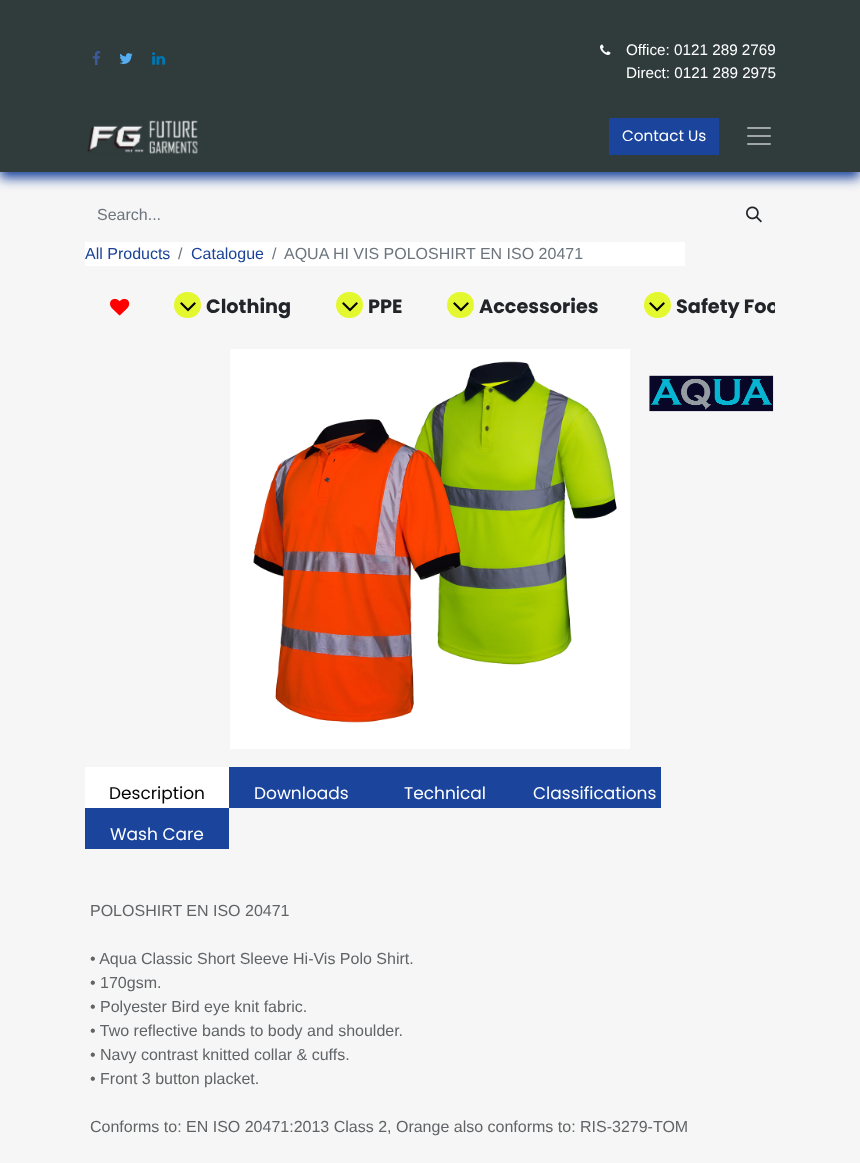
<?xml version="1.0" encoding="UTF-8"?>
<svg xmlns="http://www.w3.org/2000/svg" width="860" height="1163">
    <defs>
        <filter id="blur1" x="-50%" y="-200%" width="200%" height="500%"><feGaussianBlur stdDeviation="6"/></filter>
        <clipPath id="clip1"><rect x="85" y="279" width="690" height="50"/></clipPath>
    </defs>
    <rect width="100%" height="100%" fill="#F6F6F6"/>
    <rect x="0" y="6" width="860" height="172" fill="#1B459C" filter="url(#blur1)"/>
    <rect x="0" y="0" width="860" height="172" fill="#303B3C"/>
    <image x="92" y="51" width="9" height="15" href="img_01.png"/>
    <image x="119" y="53" width="14" height="11" href="img_02.png"/>
    <image x="152" y="52" width="13" height="13" href="img_03.png"/>
    <image x="600" y="44" width="11" height="11" href="img_04.png"/>
    <text font-family="Liberation Sans" font-size="15.25" fill="#FFFFFF">
        <tspan x="626" y="55">Office: 0121 289 2769</tspan>
        <tspan x="626" y="78">Direct: 0121 289 2975</tspan>
    </text>
    <image x="87" y="120" width="111" height="34" href="img_05.png"/>
    <rect x="609" y="118" width="110" height="37" fill="#1B459C"/>
    <text x="622" y="141" font-family="Poppins" font-size="15.25" fill="#FFFFFF">Contact Us</text>
    <image x="747" y="127" width="24" height="18" href="img_06.png"/>
    <text x="97" y="220" font-family="Liberation Sans" font-size="16" fill="#6C757D">Search...</text>
    <image x="746" y="206" width="16" height="17" href="img_07.png"/>
    <rect x="85" y="242" width="600" height="24" fill="#FFFFFF"/>
    <text x="85" y="259" font-family="Liberation Sans" font-size="16" fill="#1A4398">All Products</text>
    <text x="178" y="259" font-family="Liberation Sans" font-size="16" fill="#6C757D">/</text>
    <text x="191" y="259" font-family="Liberation Sans" font-size="16" fill="#1A4398">Catalogue</text>
    <text x="272" y="259" font-family="Liberation Sans" font-size="16" fill="#6C757D">/</text>
    <text x="284" y="259" font-family="Liberation Sans" font-size="16" fill="#6C757D">AQUA HI VIS POLOSHIRT EN ISO 20471</text>
    <image x="110" y="298" width="20" height="18" href="img_08.png"/>
    <rect x="174" y="292" width="27" height="26" rx="13" fill="#E4F830"/>
    <image x="180" y="302" width="16" height="10" href="img_09.png"/>
    <text x="206" y="313" font-family="Poppins" font-size="19.25" font-weight="700" fill="#212529">Clothing</text>
    <rect x="336" y="292" width="27" height="26" rx="13" fill="#E4F830"/>
    <image x="342" y="302" width="16" height="10" href="img_09.png"/>
    <text x="368" y="313" font-family="Poppins" font-size="19.25" font-weight="700" fill="#212529">PPE</text>
    <rect x="447" y="292" width="27" height="26" rx="13" fill="#E4F830"/>
    <image x="453" y="302" width="16" height="10" href="img_09.png"/>
    <text x="479" y="313" font-family="Poppins" font-size="19.25" font-weight="700" fill="#212529">Accessories</text>
    <rect x="644" y="292" width="27" height="26" rx="13" fill="#E4F830"/>
    <image x="649" y="302" width="16" height="10" href="img_09.png"/>
    <g clip-path="url(#clip1)">
        <text x="676" y="313" font-family="Poppins" font-size="19.25" font-weight="700" fill="#212529">Safety Foo</text>
    </g>
    <image x="230" y="349" width="400" height="400" href="img_10.png"/>
    <image x="649" y="375" width="125" height="37" href="img_11.png"/>
    <rect x="85" y="767" width="144" height="41" fill="#FFFFFF"/>
    <text x="109" y="799" font-family="Poppins" font-size="17" fill="#000000">Description</text>
    <rect x="229" y="767" width="432" height="41" fill="#1B459C"/>
    <text x="254" y="799" font-family="Poppins" font-size="17" fill="#FFFFFF">Downloads</text>
    <text x="404" y="799" font-family="Poppins" font-size="17" fill="#FFFFFF">Technical</text>
    <text x="533" y="799" font-family="Poppins" font-size="17" fill="#FFFFFF">Classifications</text>
    <rect x="85" y="808" width="144" height="41" fill="#1B459C"/>
    <text x="110" y="840" font-family="Poppins" font-size="17" fill="#FFFFFF">Wash Care</text>
    <text x="90" y="916" font-family="Liberation Sans" font-size="16" fill="#616467">POLOSHIRT EN ISO 20471</text>
    <text font-family="Liberation Sans" font-size="16" fill="#616467">
        <tspan x="90" y="964">• Aqua Classic Short Sleeve Hi-Vis Polo Shirt.</tspan>
        <tspan x="90" y="988">• 170gsm.</tspan>
        <tspan x="90" y="1012">• Polyester Bird eye knit fabric.</tspan>
        <tspan x="90" y="1036">• Two reflective bands to body and shoulder.</tspan>
        <tspan x="90" y="1060">• Navy contrast knitted collar &amp; cuffs.</tspan>
        <tspan x="90" y="1084">• Front 3 button placket.</tspan>
    </text>
    <text x="90" y="1132" font-family="Liberation Sans" font-size="16" fill="#616467">Conforms to: EN ISO 20471:2013 Class 2, Orange also conforms to: RIS-3279-TOM</text>
</svg>
